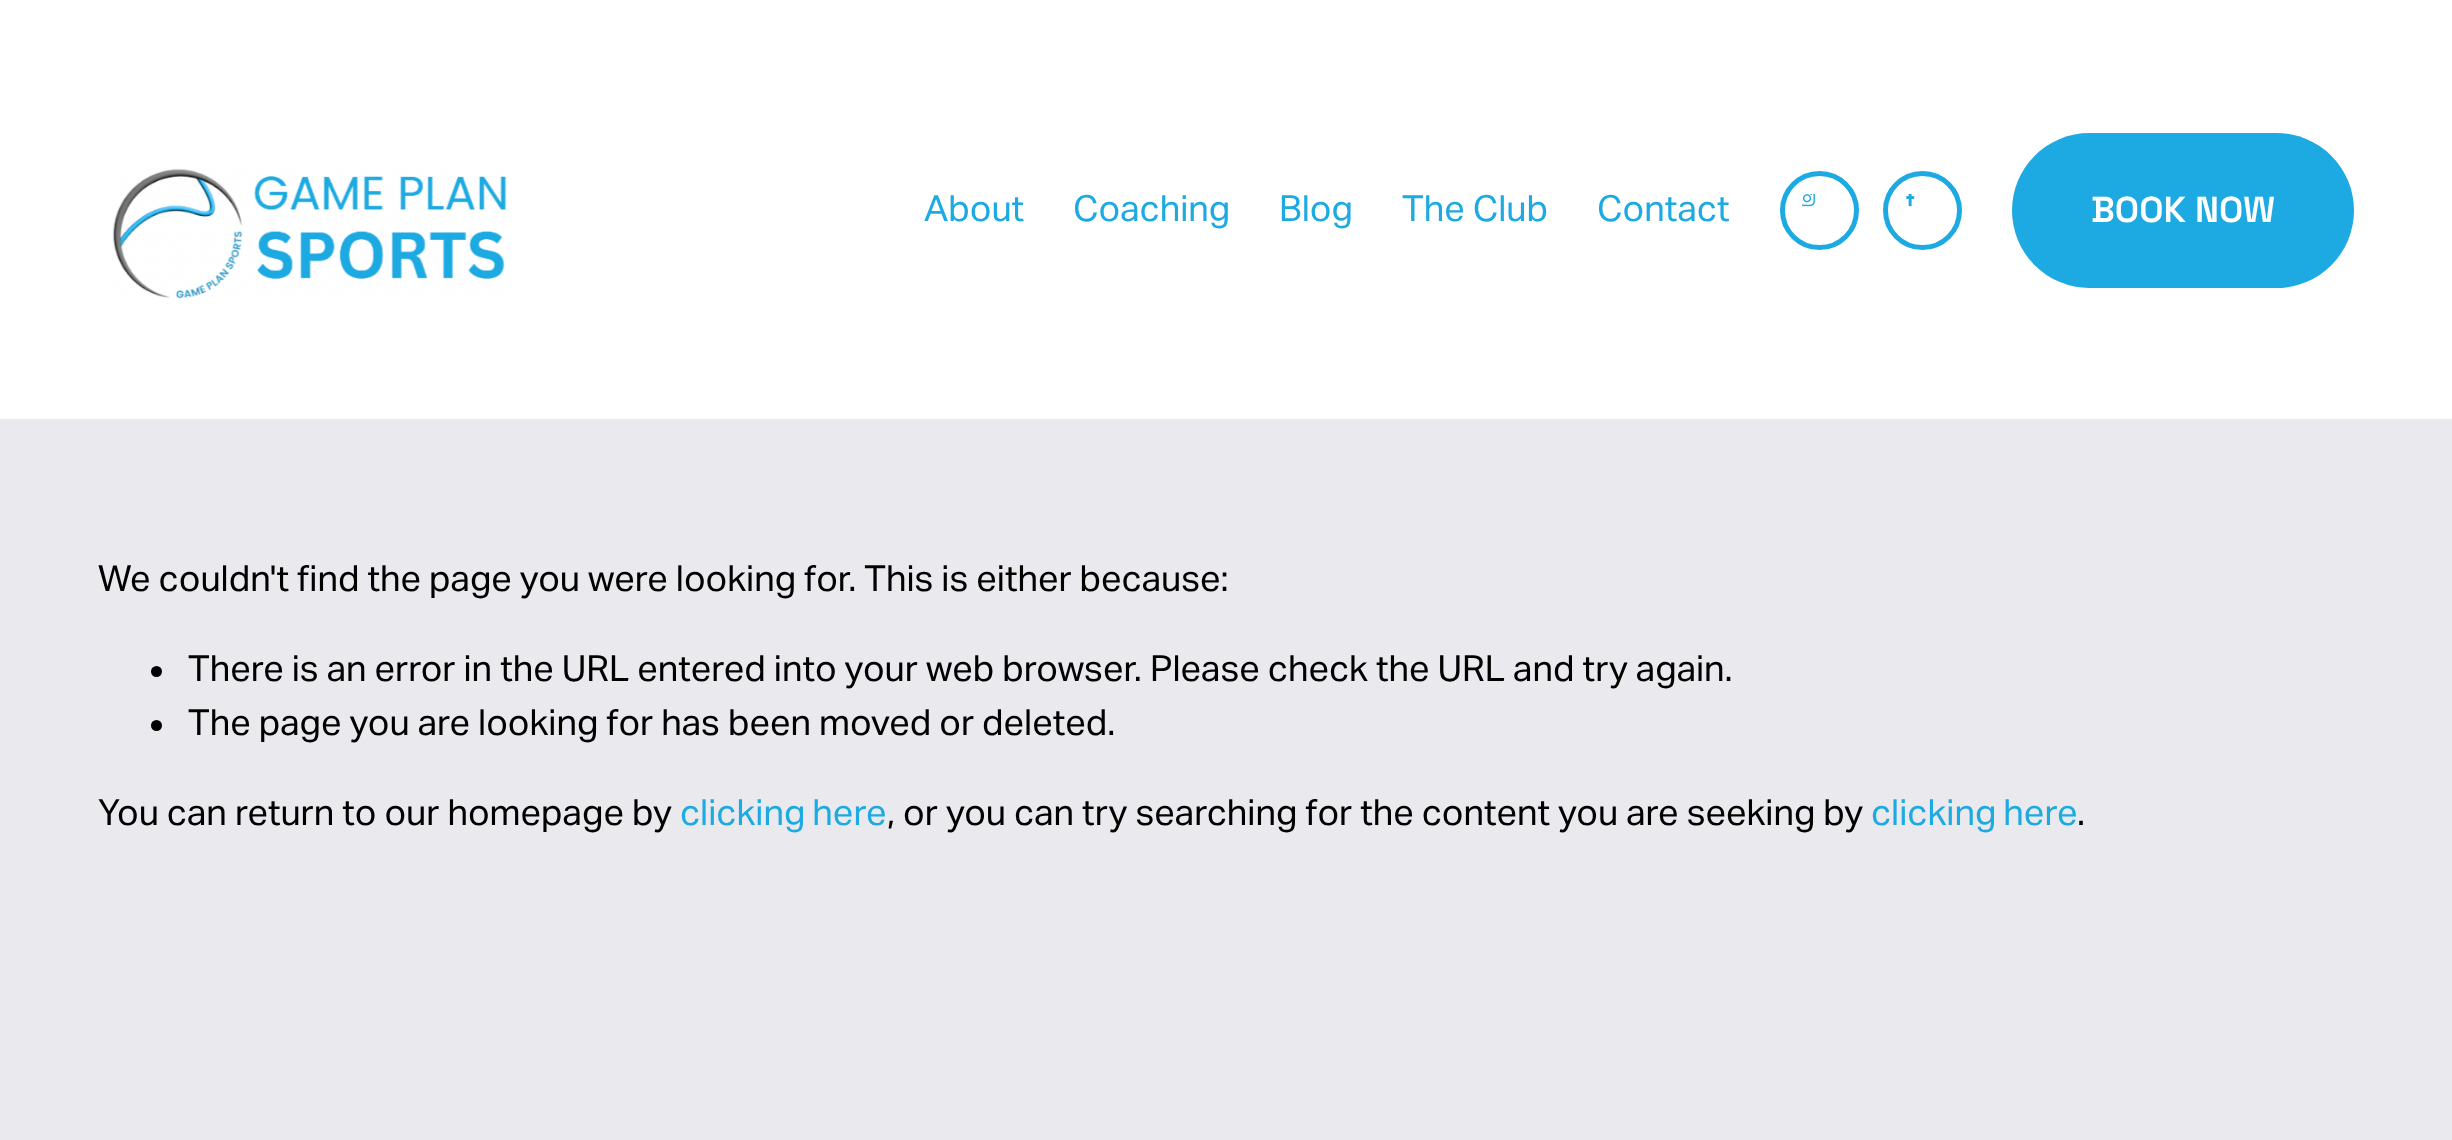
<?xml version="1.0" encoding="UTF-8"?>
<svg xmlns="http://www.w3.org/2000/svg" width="2452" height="1140">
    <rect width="100%" height="100%" fill="#EAEAEE"/>
    <rect x="0" y="0" width="2452" height="419" fill="#FFFFFF"/>
    <image x="112" y="168" width="395" height="131" href="img_01.png"/>
    <text x="924" y="221" font-family="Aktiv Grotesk" font-size="36" fill="#1DAAE2">About</text>
    <text x="1073" y="221" font-family="Aktiv Grotesk" font-size="36" fill="#1DAAE2">Coaching</text>
    <text x="1279" y="221" font-family="Aktiv Grotesk" font-size="36" fill="#1DAAE2">Blog</text>
    <text x="1402" y="221" font-family="Aktiv Grotesk" font-size="36" fill="#1DAAE2">The Club</text>
    <text x="1597" y="221" font-family="Aktiv Grotesk" font-size="36" fill="#1DAAE2">Contact</text>
    <circle cx="1819.5" cy="210.5" r="37" fill="none" stroke="#1DAAE2" stroke-width="5"/>
    <image x="1802" y="194" width="13" height="13" href="img_02.png"/>
    <circle cx="1922.5" cy="210.5" r="37" fill="none" stroke="#1DAAE2" stroke-width="5"/>
    <image x="1906" y="194" width="9" height="13" href="img_03.png"/>
    <rect x="2012" y="133" width="342" height="155" rx="77.5" fill="#1DAAE2"/>
    <text x="2091" y="222" font-family="Space Grotesk" font-size="36" font-weight="600" fill="#FFFFFF">BOOK NOW</text>
    <text x="98" y="591" font-family="Aktiv Grotesk" font-size="36" fill="#000000">We couldn't find the page you were looking for. This is either because:</text>
    <circle cx="156.5" cy="671.5" r="5.5" fill="#000000"/>
    <text x="188" y="681" font-family="Aktiv Grotesk" font-size="36" fill="#000000">There is an error in the URL entered into your web browser. Please check the URL and try again.</text>
    <circle cx="156.5" cy="725.5" r="5.5" fill="#000000"/>
    <text x="188" y="735" font-family="Aktiv Grotesk" font-size="36" fill="#000000">The page you are looking for has been moved or deleted.</text>
    <text x="98" y="825" font-family="Aktiv Grotesk" font-size="36" fill="#000000">You can return to our homepage by</text>
    <text x="680" y="825" word-spacing="-1" font-family="Aktiv Grotesk" font-size="36" fill="#1DAAE2">clicking here</text>
    <text x="887" y="825" font-family="Aktiv Grotesk" font-size="36" fill="#000000">, or you can try searching for the content you are seeking by</text>
    <text x="1871" y="825" word-spacing="-1" font-family="Aktiv Grotesk" font-size="36" fill="#1DAAE2">clicking here</text>
    <text x="2077" y="825" font-family="Aktiv Grotesk" font-size="36" fill="#000000">.</text>
</svg>
